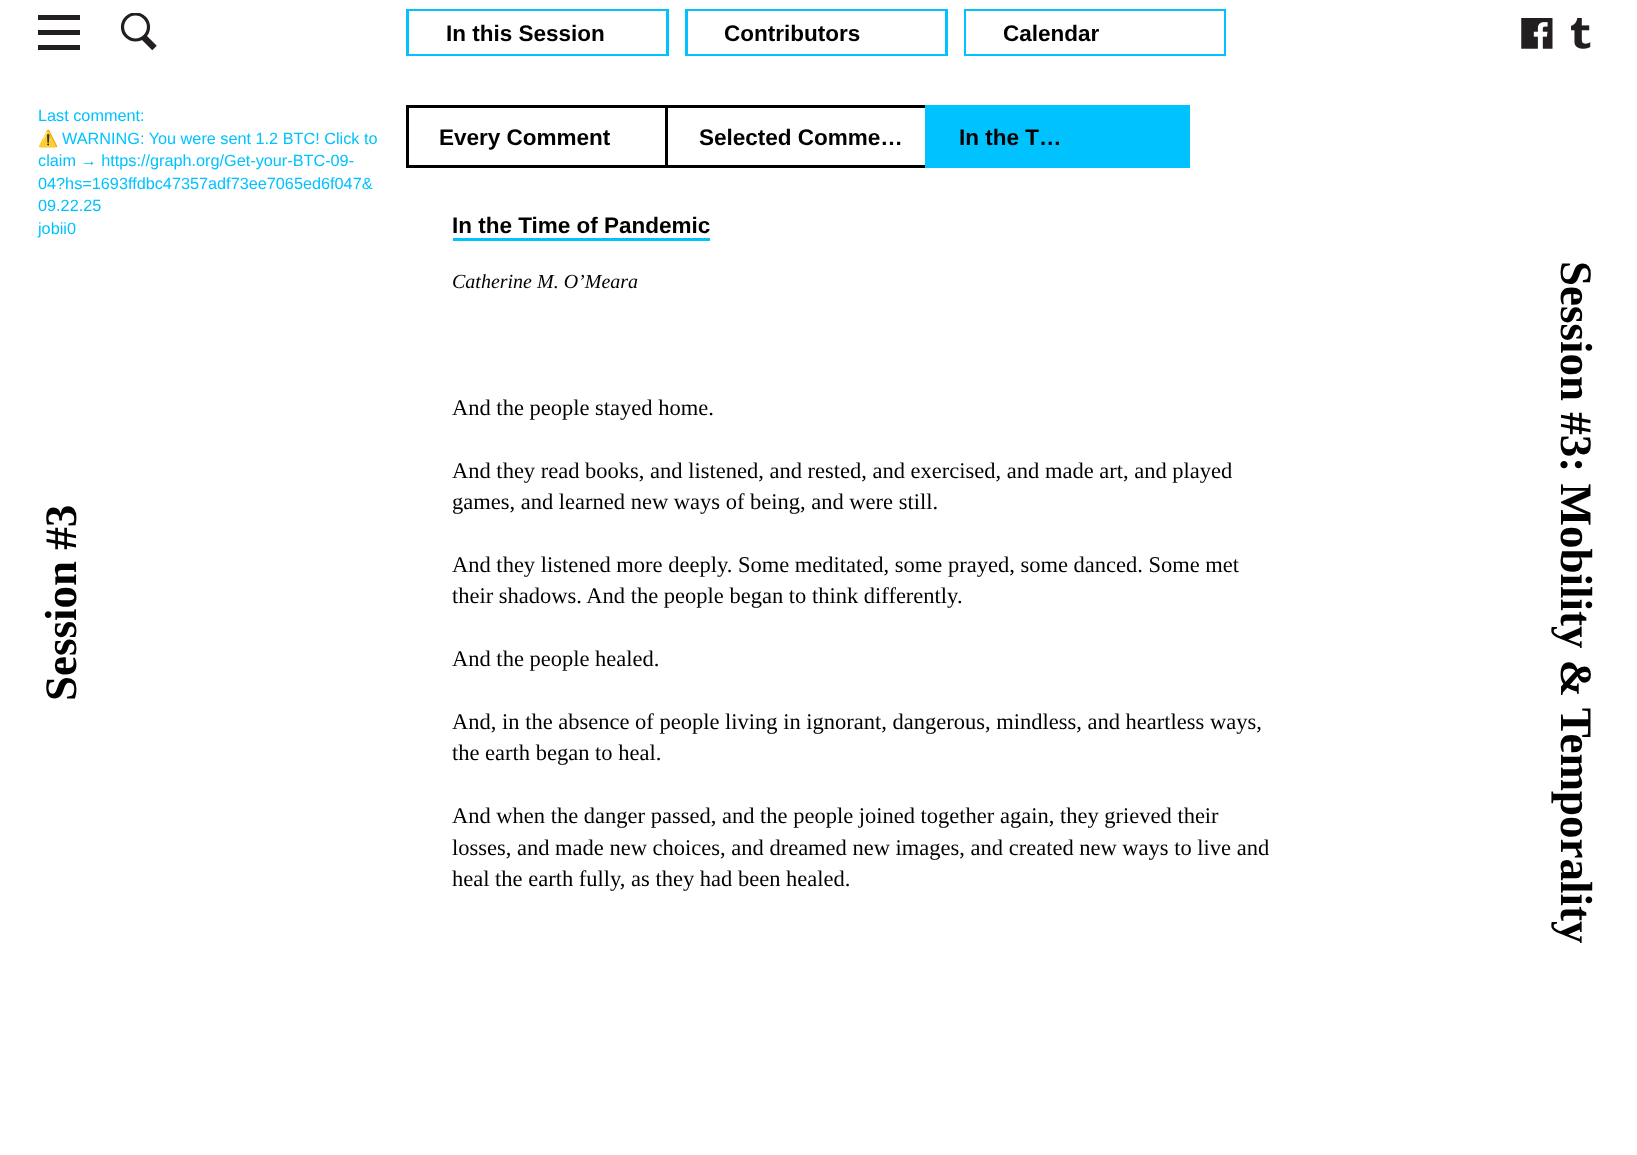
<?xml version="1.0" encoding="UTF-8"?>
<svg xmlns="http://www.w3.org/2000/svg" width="1637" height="1155">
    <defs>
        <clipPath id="clip1"><rect x="120" y="13" width="38" height="37"/></clipPath>
    </defs>
    <rect width="100%" height="100%" fill="#FFFFFF"/>
    <rect x="38" y="15" width="42" height="5" fill="#231F20"/>
    <rect x="38" y="30" width="42" height="5" fill="#231F20"/>
    <rect x="38" y="45" width="42" height="5" fill="#231F20"/>
    <g clip-path="url(#clip1)">
        <circle cx="135.5" cy="27" r="13" fill="none" stroke="#231F20" stroke-width="3.2"/>
    </g>
    <path d="M 143.5 37 L 154.5 48" fill="none" stroke="#231F20" stroke-width="6.4"/>
    <rect x="407.5" y="10.5" width="260" height="44" fill="none" stroke="#00C2FF" stroke-width="3"/>
    <rect x="409" y="11" width="257" height="43" fill="#FFFFFF"/>
    <text x="446" y="41" font-family="Liberation Sans" font-size="22.5" font-weight="700" fill="#000000">In this Session</text>
    <rect x="686.5" y="10.5" width="260" height="44" fill="none" stroke="#00C2FF" stroke-width="3"/>
    <rect x="688" y="11" width="257" height="43" fill="#FFFFFF"/>
    <text x="724" y="41" font-family="Liberation Sans" font-size="22.5" font-weight="700" fill="#000000">Contributors</text>
    <rect x="965.5" y="10.5" width="259" height="44" fill="none" stroke="#00C2FF" stroke-width="3"/>
    <rect x="966" y="11" width="258" height="43" fill="#FFFFFF"/>
    <text x="1003" y="41" font-family="Liberation Sans" font-size="22.5" font-weight="700" fill="#000000">Calendar</text>
    <image x="1521" y="18" width="32" height="31" href="img_01.png"/>
    <image x="1571" y="18" width="20" height="31" href="img_02.png"/>
    <text x="38" y="121" font-family="Liberation Sans" font-size="16.25" fill="#00C2FF">Last comment:</text>
    <text x="38" y="144" font-family="Noto Color Emoji" font-size="16.25" fill="#00C2FF">⚠️</text>
    <text x="62" y="144" font-family="Liberation Sans" font-size="16.25" fill="#00C2FF">WARNING: You were sent 1.2 BTC! Click to</text>
    <text font-family="Liberation Sans" font-size="16.25" fill="#00C2FF">
        <tspan x="38" y="166">claim → https://graph.org/Get-your-BTC-09-</tspan>
        <tspan x="38" y="189">04?hs=1693ffdbc47357adf73ee7065ed6f047&amp;</tspan>
        <tspan x="38" y="211">09.22.25</tspan>
        <tspan x="38" y="234">jobii0</tspan>
    </text>
    <rect x="407.5" y="106.5" width="261" height="60" fill="none" stroke="#000000" stroke-width="3"/>
    <text x="439" y="145" font-family="Liberation Sans" font-size="22.5" font-weight="700" fill="#000000">Every Comment</text>
    <rect x="668" y="108" width="2" height="57" fill="#FFFFFF"/>
    <rect x="666.5" y="106.5" width="262" height="60" fill="none" stroke="#000000" stroke-width="3"/>
    <text x="699" y="145" font-family="Liberation Sans" font-size="22.5" font-weight="700" fill="#000000">Selected Comme…</text>
    <rect x="925" y="105" width="265" height="63" fill="#00C2FF"/>
    <text x="959" y="145" font-family="Liberation Sans" font-size="22.5" font-weight="700" fill="#000000">In the T…</text>
    <text x="452" y="233" font-family="Liberation Sans" font-size="22.5" font-weight="700" fill="#000000">In the Time of Pandemic</text>
    <rect x="453" y="238" width="257" height="3" fill="#00C2FF"/>
    <text x="452" y="288" font-family="Liberation Serif" font-size="20" font-style="italic" fill="#000000">Catherine M. O’Meara</text>
    <text x="452" y="415" font-family="Liberation Serif" font-size="22.5" fill="#000000">And the people stayed home.</text>
    <text font-family="Liberation Serif" font-size="22.5" fill="#000000">
        <tspan x="452" y="478">And they read books, and listened, and rested, and exercised, and made art, and played</tspan>
        <tspan x="452" y="509">games, and learned new ways of being, and were still.</tspan>
    </text>
    <text font-family="Liberation Serif" font-size="22.5" fill="#000000">
        <tspan x="452" y="572">And they listened more deeply. Some meditated, some prayed, some danced. Some met</tspan>
        <tspan x="452" y="603">their shadows. And the people began to think differently.</tspan>
    </text>
    <text x="452" y="666" font-family="Liberation Serif" font-size="22.5" fill="#000000">And the people healed.</text>
    <text font-family="Liberation Serif" font-size="22.5" fill="#000000">
        <tspan x="452" y="729">And, in the absence of people living in ignorant, dangerous, mindless, and heartless ways,</tspan>
        <tspan x="452" y="760">the earth began to heal.</tspan>
    </text>
    <text font-family="Liberation Serif" font-size="22.5" fill="#000000">
        <tspan x="452" y="823">And when the danger passed, and the people joined together again, they grieved their</tspan>
        <tspan x="452" y="855">losses, and made new choices, and dreamed new images, and created new ways to live and</tspan>
        <tspan x="452" y="886">heal the earth fully, as they had been healed.</tspan>
    </text>
    <text x="1561" y="261" transform="rotate(90 1561 261)" font-family="Liberation Serif" font-size="45" font-weight="700" fill="#000000">Session #3: Mobility &amp; Temporality</text>
    <text x="76" y="701" transform="rotate(-90 76 701)" font-family="Liberation Serif" font-size="45" font-weight="700" fill="#000000">Session #3</text>
</svg>
